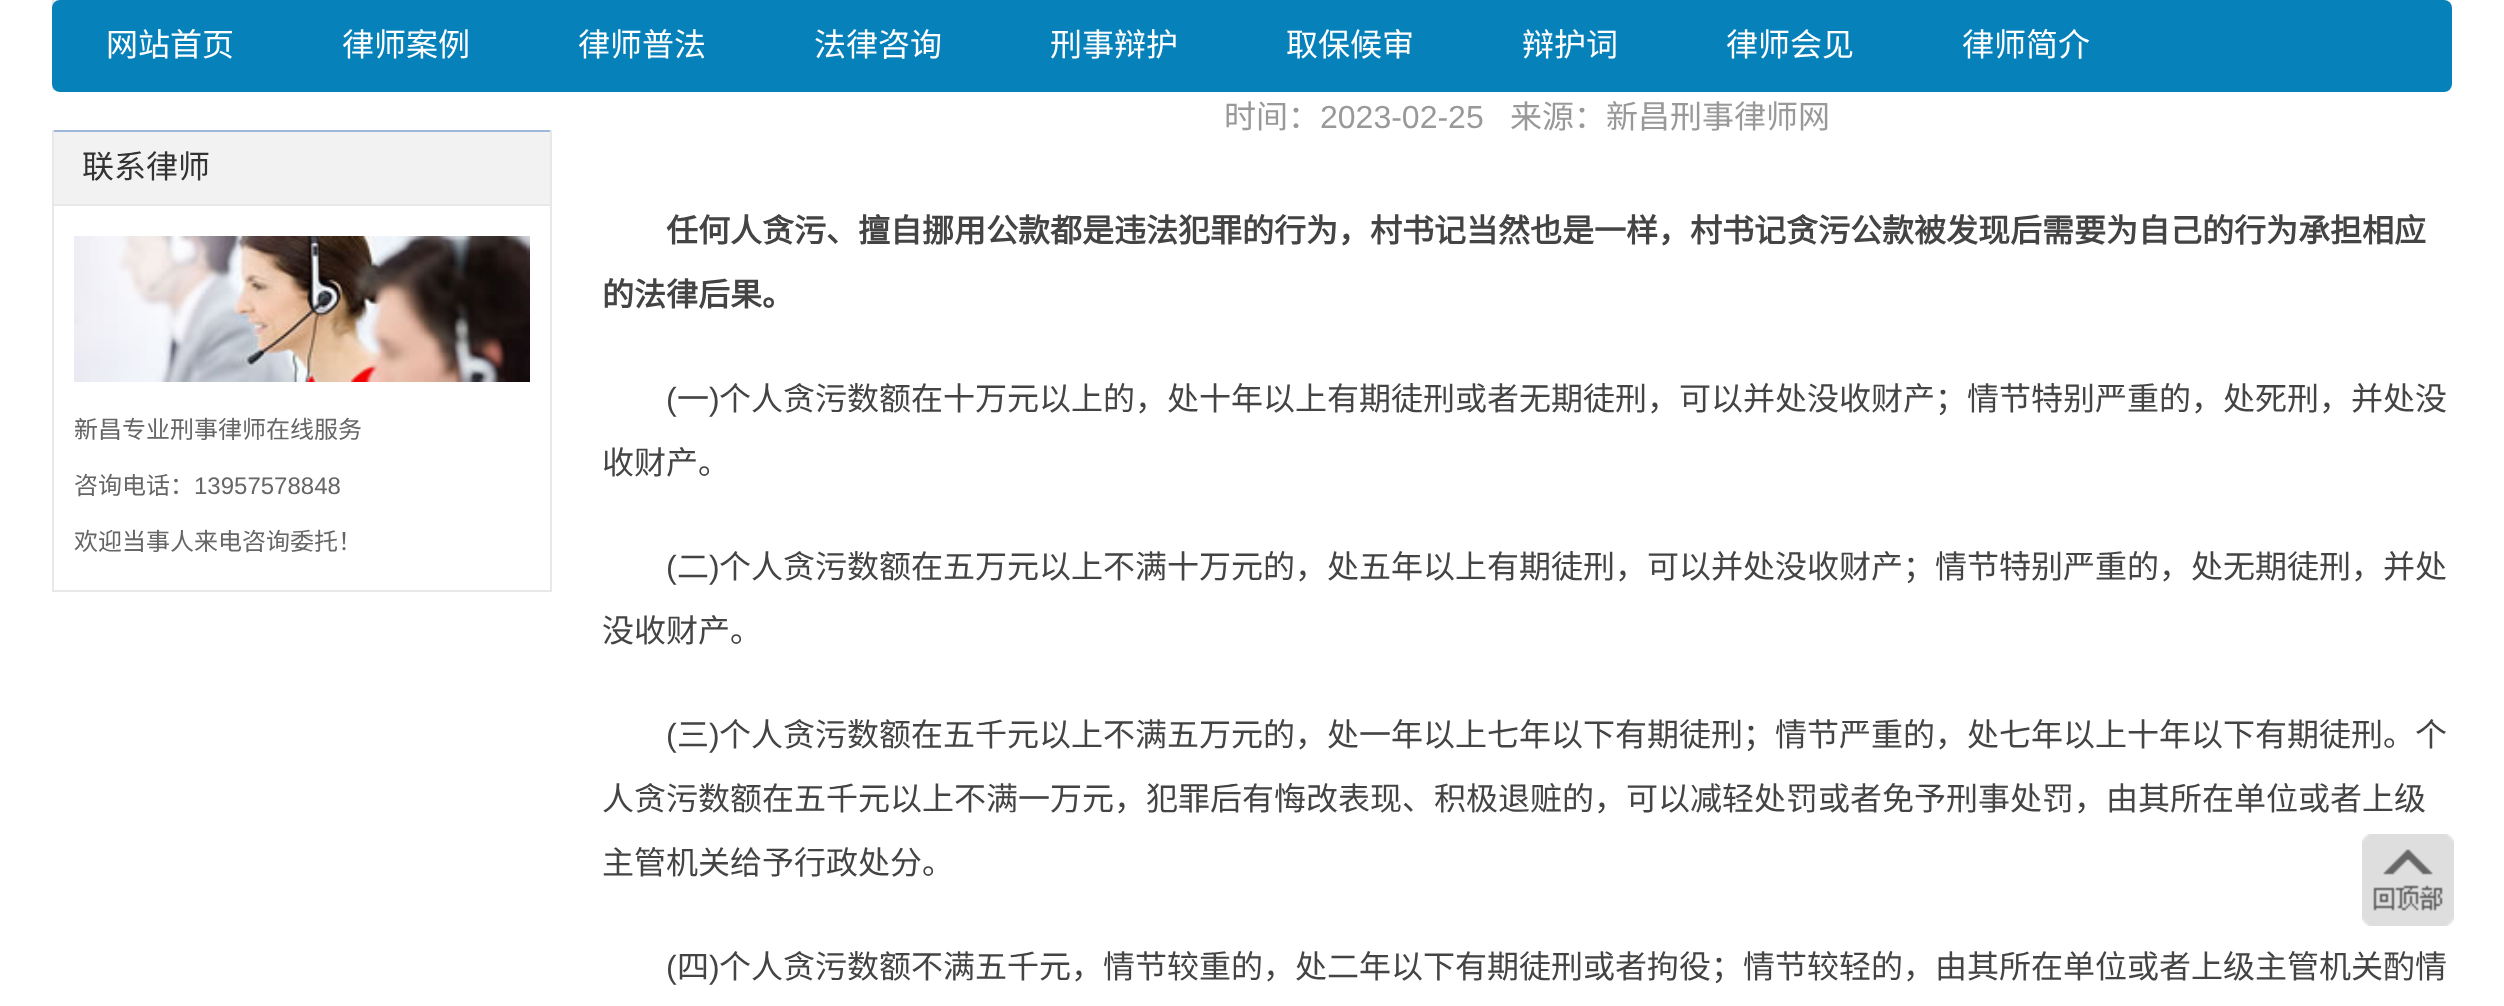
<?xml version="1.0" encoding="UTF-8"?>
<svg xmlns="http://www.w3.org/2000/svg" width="2504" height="1006">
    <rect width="100%" height="100%" fill="#FFFFFF"/>
    <rect x="54" y="0" width="6" height="3" fill="#F2F2F2"/>
    <rect x="52" y="0" width="2" height="8" fill="#E8E8E8"/>
    <rect x="53" y="47" width="498" height="42" fill="none" stroke="#E8E8E8" stroke-width="2"/>
    <rect x="52" y="0" width="2400" height="92" rx="8" fill="#0781BA"/>
    <text x="106" y="56" font-family="Noto Sans CJK SC" font-size="32" fill="#FFFFFF">网站首页</text>
    <text x="342" y="56" font-family="Noto Sans CJK SC" font-size="32" fill="#FFFFFF">律师案例</text>
    <text x="578" y="56" font-family="Noto Sans CJK SC" font-size="32" fill="#FFFFFF">律师普法</text>
    <text x="814" y="56" font-family="Noto Sans CJK SC" font-size="32" fill="#FFFFFF">法律咨询</text>
    <text x="1050" y="56" font-family="Noto Sans CJK SC" font-size="32" fill="#FFFFFF">刑事辩护</text>
    <text x="1286" y="56" font-family="Noto Sans CJK SC" font-size="32" fill="#FFFFFF">取保候审</text>
    <text x="1522" y="56" font-family="Noto Sans CJK SC" font-size="32" fill="#FFFFFF">辩护词</text>
    <text x="1726" y="56" font-family="Noto Sans CJK SC" font-size="32" fill="#FFFFFF">律师会见</text>
    <text x="1962" y="56" font-family="Noto Sans CJK SC" font-size="32" fill="#FFFFFF">律师简介</text>
    <rect x="54" y="132" width="496" height="72" fill="#F2F2F2"/>
    <rect x="52" y="130" width="500" height="2" fill="#A0B7DC"/>
    <rect x="550" y="130" width="2" height="74" fill="#E8E8E8"/>
    <rect x="52" y="130" width="2" height="74" fill="#E8E8E8"/>
    <text x="82" y="178" font-family="Noto Sans CJK SC" font-size="32" fill="#333333">联系律师</text>
    <rect x="53" y="205" width="498" height="386" fill="none" stroke="#E8E8E8" stroke-width="2"/>
    <image x="74" y="236" width="456" height="146" href="img_01.png"/>
    <text x="74" y="438" font-family="Noto Sans CJK SC" font-size="24" fill="#666666">新昌专业刑事律师在线服务</text>
    <text x="74" y="494" font-family="Noto Sans CJK SC" font-size="24" fill="#666666">咨询电话：</text>
    <text x="194" y="494" font-family="Liberation Sans" font-size="24" fill="#666666">13957578848</text>
    <text x="74" y="550" font-family="Noto Sans CJK SC" font-size="24" fill="#666666">欢迎当事人来电咨询委托！</text>
    <text x="1224" y="128" font-family="Noto Sans CJK SC" font-size="32" fill="#999999">时间：</text>
    <text x="1320" y="128" font-family="Liberation Sans" font-size="32" fill="#999999">2023-02-25</text>
    <text x="1510" y="128" font-family="Noto Sans CJK SC" font-size="32" fill="#999999">来源：新昌刑事律师网</text>
    <text x="666" y="242" font-family="Noto Sans CJK SC" font-size="32" font-weight="700" fill="#444444">任何人贪污、擅自挪用公款都是违法犯罪的行为，村书记当然也是一样，村书记贪污公款被发现后需要为自己的行为承担相应</text>
    <text x="602" y="306" font-family="Noto Sans CJK SC" font-size="32" font-weight="700" fill="#444444">的法律后果。</text>
    <text x="666" y="410" font-family="Liberation Sans" font-size="32" fill="#444444">(</text>
    <text x="677" y="410" font-family="Noto Sans CJK SC" font-size="32" fill="#444444">一</text>
    <text x="709" y="410" font-family="Liberation Sans" font-size="32" fill="#444444">)</text>
    <text x="719" y="410" font-family="Noto Sans CJK SC" font-size="32" fill="#444444">个人贪污数额在十万元以上的，处十年以上有期徒刑或者无期徒刑，可以并处没收财产；情节特别严重的，处死刑，并处没</text>
    <text x="602" y="474" font-family="Noto Sans CJK SC" font-size="32" fill="#444444">收财产。</text>
    <text x="666" y="578" font-family="Liberation Sans" font-size="32" fill="#444444">(</text>
    <text x="677" y="578" font-family="Noto Sans CJK SC" font-size="32" fill="#444444">二</text>
    <text x="709" y="578" font-family="Liberation Sans" font-size="32" fill="#444444">)</text>
    <text x="719" y="578" font-family="Noto Sans CJK SC" font-size="32" fill="#444444">个人贪污数额在五万元以上不满十万元的，处五年以上有期徒刑，可以并处没收财产；情节特别严重的，处无期徒刑，并处</text>
    <text x="602" y="642" font-family="Noto Sans CJK SC" font-size="32" fill="#444444">没收财产。</text>
    <text x="666" y="746" font-family="Liberation Sans" font-size="32" fill="#444444">(</text>
    <text x="677" y="746" font-family="Noto Sans CJK SC" font-size="32" fill="#444444">三</text>
    <text x="709" y="746" font-family="Liberation Sans" font-size="32" fill="#444444">)</text>
    <text x="719" y="746" font-family="Noto Sans CJK SC" font-size="32" fill="#444444">个人贪污数额在五千元以上不满五万元的，处一年以上七年以下有期徒刑；情节严重的，处七年以上十年以下有期徒刑。个</text>
    <text x="602" y="810" font-family="Noto Sans CJK SC" font-size="32" fill="#444444">人贪污数额在五千元以上不满一万元，犯罪后有悔改表现、积极退赃的，可以减轻处罚或者免予刑事处罚，由其所在单位或者上级</text>
    <text x="602" y="874" font-family="Noto Sans CJK SC" font-size="32" fill="#444444">主管机关给予行政处分。</text>
    <text x="666" y="978" font-family="Liberation Sans" font-size="32" fill="#444444">(</text>
    <text x="677" y="978" font-family="Noto Sans CJK SC" font-size="32" fill="#444444">四</text>
    <text x="709" y="978" font-family="Liberation Sans" font-size="32" fill="#444444">)</text>
    <text x="719" y="978" font-family="Noto Sans CJK SC" font-size="32" fill="#444444">个人贪污数额不满五千元，情节较重的，处二年以下有期徒刑或者拘役；情节较轻的，由其所在单位或者上级主管机关酌情</text>
    <image x="2362" y="834" width="92" height="92" href="img_02.png"/>
</svg>
